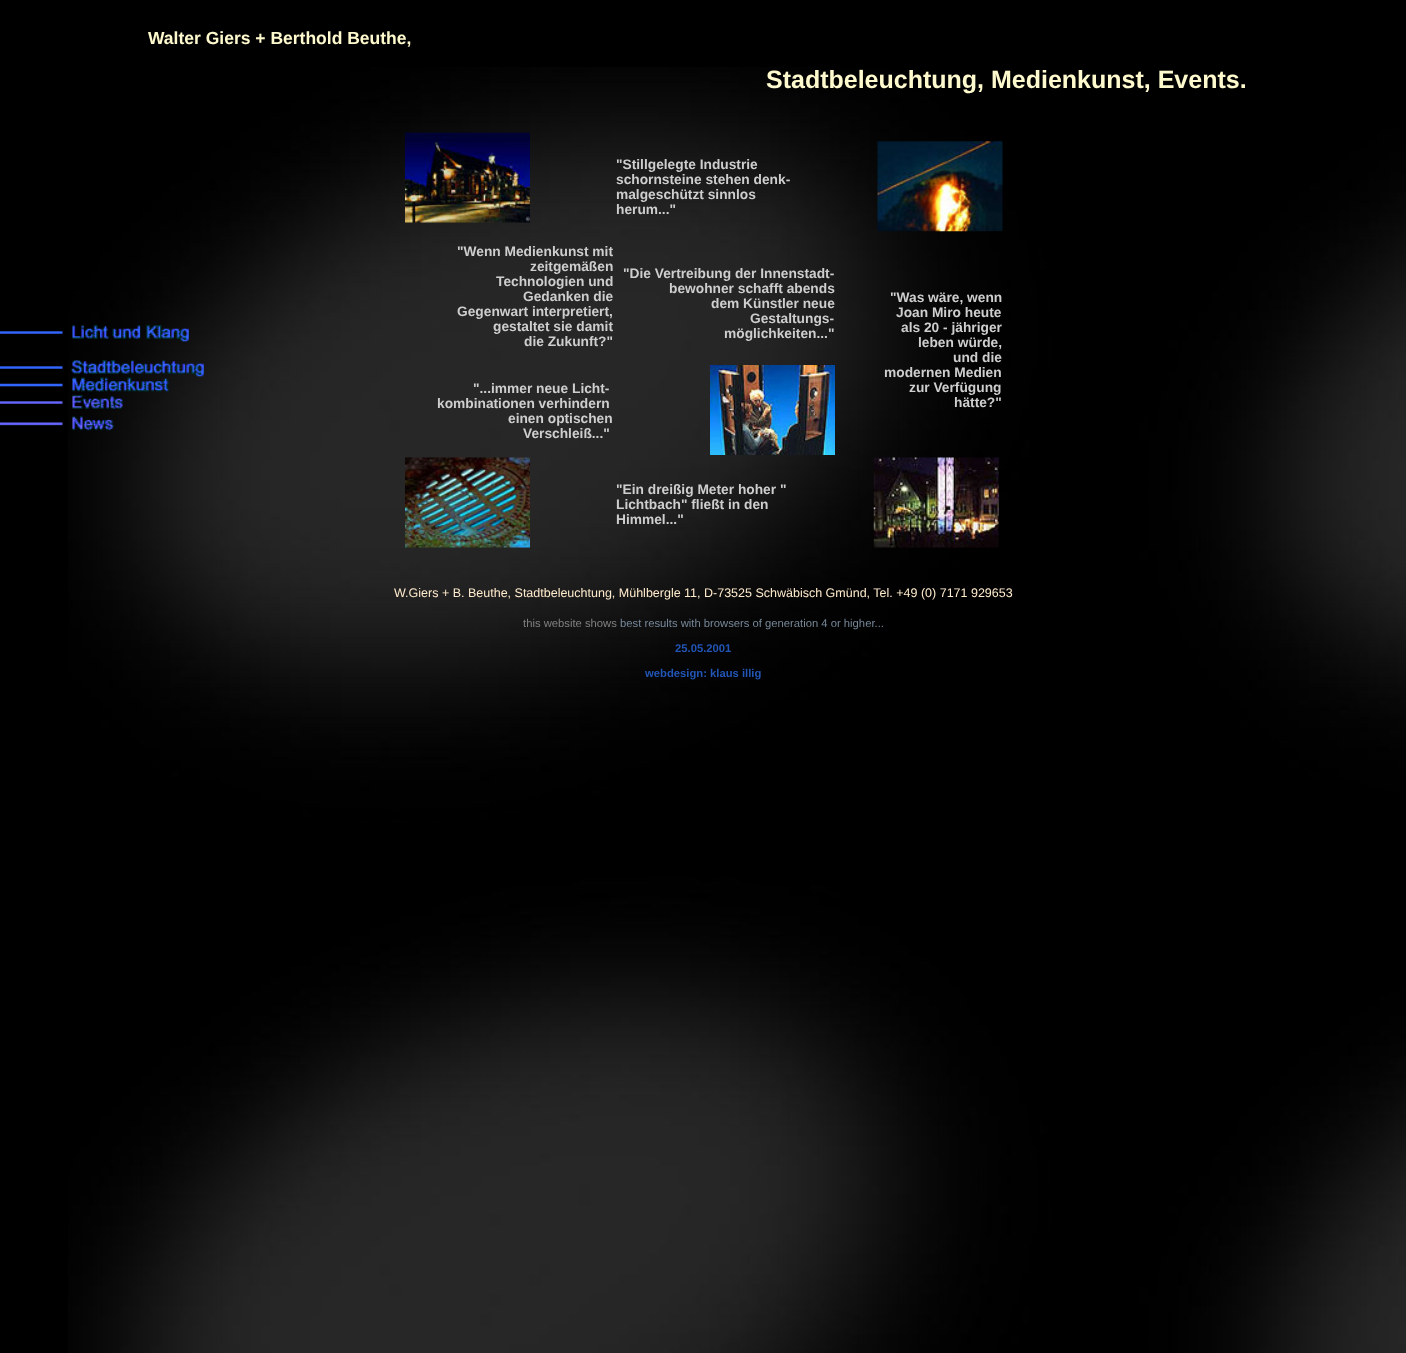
<?xml version="1.0" encoding="UTF-8"?>
<svg xmlns="http://www.w3.org/2000/svg" width="1406" height="1353">
    <rect width="100%" height="100%" fill="#000000"/>
    <image x="68" y="67" width="1338" height="1286" href="img_01.png"/>
    <text x="148" y="44" font-family="Liberation Sans" font-size="17.5" font-weight="700" fill="#FFFACD">Walter Giers + Berthold Beuthe,</text>
    <image x="0" y="325" width="189" height="17" href="img_02.png"/>
    <image x="0" y="359" width="204" height="18" href="img_03.png"/>
    <image x="0" y="377" width="169" height="15" href="img_04.png"/>
    <image x="0" y="395" width="123" height="14" href="img_05.png"/>
    <image x="0" y="416" width="114" height="15" href="img_06.png"/>
    <text x="766" y="88" font-family="Liberation Sans" font-size="25" font-weight="700" fill="#FFFACD">Stadtbeleuchtung, Medienkunst, Events.</text>
    <image x="405" y="132" width="125" height="91" href="img_07.png"/>
    <text font-family="Liberation Sans" font-size="13.75" font-weight="700" fill="#CECECE">
        <tspan x="616" y="169">"Stillgelegte Industrie</tspan>
        <tspan x="616" y="184">schornsteine stehen denk-</tspan>
        <tspan x="616" y="199">malgeschützt sinnlos</tspan>
        <tspan x="616" y="214">herum..."</tspan>
    </text>
    <image x="877" y="141" width="126" height="91" href="img_08.png"/>
    <text x="457" y="256" font-family="Liberation Sans" font-size="13.75" font-weight="700" fill="#CECECE">"Wenn Medienkunst mit</text>
    <text x="530" y="271" font-family="Liberation Sans" font-size="13.75" font-weight="700" fill="#CECECE">zeitgemäßen</text>
    <text x="496" y="286" font-family="Liberation Sans" font-size="13.75" font-weight="700" fill="#CECECE">Technologien und</text>
    <text x="523" y="301" font-family="Liberation Sans" font-size="13.75" font-weight="700" fill="#CECECE">Gedanken die</text>
    <text x="457" y="316" font-family="Liberation Sans" font-size="13.75" font-weight="700" fill="#CECECE">Gegenwart interpretiert,</text>
    <text x="493" y="331" font-family="Liberation Sans" font-size="13.75" font-weight="700" fill="#CECECE">gestaltet sie damit</text>
    <text x="524" y="346" font-family="Liberation Sans" font-size="13.75" font-weight="700" fill="#CECECE">die Zukunft?"</text>
    <text x="623" y="278" font-family="Liberation Sans" font-size="13.75" font-weight="700" fill="#CECECE">"Die Vertreibung der Innenstadt-</text>
    <text x="669" y="293" font-family="Liberation Sans" font-size="13.75" font-weight="700" fill="#CECECE">bewohner schafft abends</text>
    <text x="711" y="308" font-family="Liberation Sans" font-size="13.75" font-weight="700" fill="#CECECE">dem Künstler neue</text>
    <text x="750" y="323" font-family="Liberation Sans" font-size="13.75" font-weight="700" fill="#CECECE">Gestaltungs-</text>
    <text x="724" y="338" font-family="Liberation Sans" font-size="13.75" font-weight="700" fill="#CECECE">möglichkeiten..."</text>
    <text x="890" y="302" font-family="Liberation Sans" font-size="13.75" font-weight="700" fill="#CECECE">"Was wäre, wenn</text>
    <text x="896" y="317" font-family="Liberation Sans" font-size="13.75" font-weight="700" fill="#CECECE">Joan Miro heute</text>
    <text x="901" y="332" font-family="Liberation Sans" font-size="13.75" font-weight="700" fill="#CECECE">als 20 - jähriger</text>
    <text x="918" y="347" font-family="Liberation Sans" font-size="13.75" font-weight="700" fill="#CECECE">leben würde,</text>
    <text x="953" y="362" font-family="Liberation Sans" font-size="13.75" font-weight="700" fill="#CECECE">und die</text>
    <text x="884" y="377" font-family="Liberation Sans" font-size="13.75" font-weight="700" fill="#CECECE">modernen Medien</text>
    <text x="909" y="392" font-family="Liberation Sans" font-size="13.75" font-weight="700" fill="#CECECE">zur Verfügung</text>
    <text x="954" y="407" font-family="Liberation Sans" font-size="13.75" font-weight="700" fill="#CECECE">hätte?"</text>
    <text x="473" y="393" font-family="Liberation Sans" font-size="13.75" font-weight="700" fill="#CECECE">"...immer neue Licht-</text>
    <text x="437" y="408" font-family="Liberation Sans" font-size="13.75" font-weight="700" fill="#CECECE">kombinationen verhindern</text>
    <text x="508" y="423" font-family="Liberation Sans" font-size="13.75" font-weight="700" fill="#CECECE">einen optischen</text>
    <text x="523" y="438" font-family="Liberation Sans" font-size="13.75" font-weight="700" fill="#CECECE">Verschleiß..."</text>
    <image x="710" y="365" width="125" height="90" href="img_09.png"/>
    <image x="405" y="457" width="125" height="91" href="img_10.png"/>
    <text font-family="Liberation Sans" font-size="13.75" font-weight="700" fill="#CECECE">
        <tspan x="616" y="494">"Ein dreißig Meter hoher "</tspan>
        <tspan x="616" y="509">Lichtbach" fließt in den</tspan>
        <tspan x="616" y="524">Himmel..."</tspan>
    </text>
    <image x="873" y="457" width="126" height="91" href="img_11.png"/>
    <text x="394" y="597" font-family="Liberation Sans" font-size="12.5" fill="#FFEBCD">W.Giers + B. Beuthe, Stadtbeleuchtung, Mühlbergle 11, D-73525 Schwäbisch Gmünd, Tel. +49 (0) 7171 929653</text>
    <text x="523" y="627" font-family="Liberation Sans" font-size="11.25" fill="#808080">this website shows</text>
    <text x="620" y="627" font-family="Liberation Sans" font-size="11.25" fill="#778899">best results with browsers of generation 4 or higher...</text>
    <text x="675" y="652" font-family="Liberation Sans" font-size="11.25" font-weight="700" fill="#2255B5">25.05.2001</text>
    <text x="645" y="677" font-family="Liberation Sans" font-size="11.25" font-weight="700" fill="#2255B5">webdesign: klaus illig</text>
</svg>
